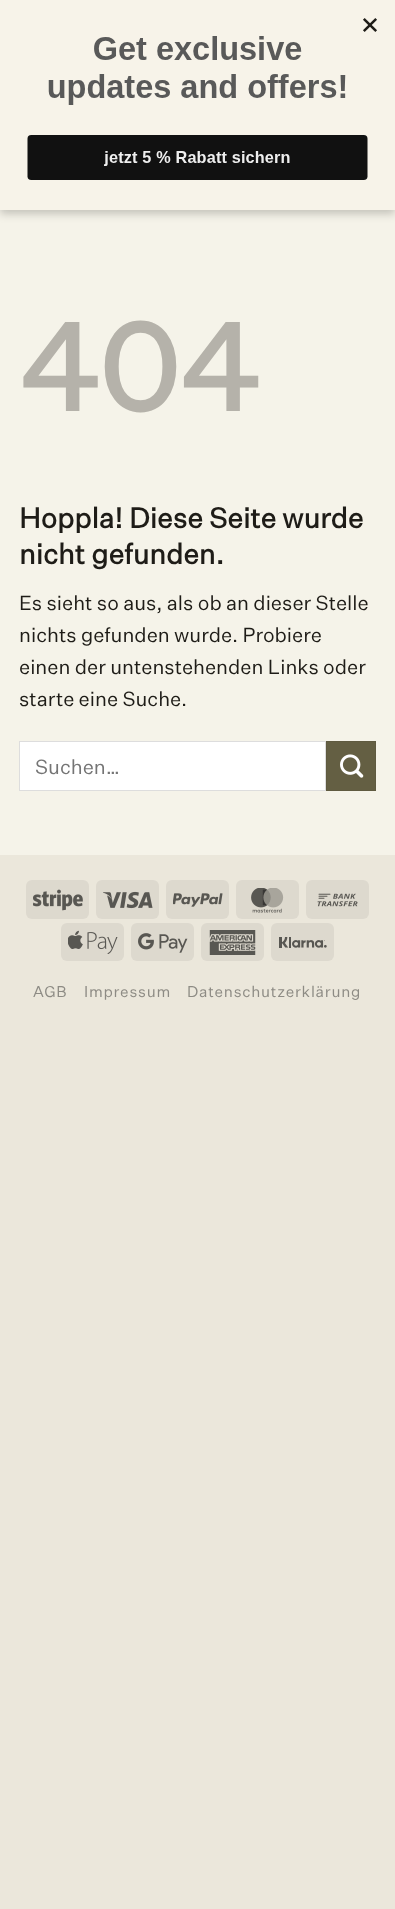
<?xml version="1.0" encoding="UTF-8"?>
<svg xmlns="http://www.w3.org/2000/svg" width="395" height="1909">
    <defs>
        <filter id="blur1" x="-50%" y="-200%" width="200%" height="500%"><feGaussianBlur stdDeviation="4"/></filter>
    </defs>
    <rect width="100%" height="100%" fill="#EBE7DB"/>
    <rect x="0" y="210" width="395" height="645" fill="#F5F3E9"/>
    <rect x="0" y="4" width="395" height="210" fill="#000000" fill-opacity="0.2" filter="url(#blur1)"/>
    <image x="0" y="0" width="395" height="210" href="img_01.png"/>
    <text x="19" y="411" font-family="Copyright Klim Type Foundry" font-size="120" font-weight="700" fill="#B5B2AA">404</text>
    <text font-family="Copyright Klim Type Foundry" font-size="28" font-weight="700" fill="#1E1C17">
        <tspan x="19" y="528">Hoppla! Diese Seite wurde</tspan>
        <tspan x="19" y="564">nicht gefunden.</tspan>
    </text>
    <text font-family="Copyright Klim Type Foundry" font-size="20" fill="#1E1C17">
        <tspan x="19" y="610">Es sieht so aus, als ob an dieser Stelle</tspan>
        <tspan x="19" y="642">nichts gefunden wurde. Probiere</tspan>
        <tspan x="19" y="674">einen der untenstehenden Links oder</tspan>
        <tspan x="19" y="706">starte eine Suche.</tspan>
    </text>
    <rect x="19.5" y="741.5" width="306" height="49" fill="#FFFFFF" stroke="#DDDDDD"/>
    <text x="35" y="774" font-family="Copyright Klim Type Foundry" font-size="20" fill="#757575">Suchen…</text>
    <rect x="326.5" y="741.5" width="49" height="49" fill="#645F43" stroke="#5F5A40"/>
    <image x="340" y="754" width="24" height="24" href="img_02.png"/>
    <rect x="26" y="880" width="63" height="39" rx="6" fill="#DDD9CE"/>
    <image x="33" y="889" width="50" height="22" href="img_03.png"/>
    <rect x="96" y="880" width="63" height="39" rx="6" fill="#DDD9CE"/>
    <image x="103" y="891" width="50" height="18" href="img_04.png"/>
    <rect x="166" y="880" width="63" height="39" rx="6" fill="#DDD9CE"/>
    <image x="173" y="893" width="50" height="14" href="img_05.png"/>
    <rect x="236" y="880" width="63" height="39" rx="6" fill="#DDD9CE"/>
    <image x="251" y="888" width="33" height="25" href="img_06.png"/>
    <rect x="306" y="880" width="63" height="39" rx="6" fill="#DDD9CE"/>
    <image x="317" y="893" width="41" height="14" href="img_07.png"/>
    <rect x="61" y="923" width="63" height="38" rx="6" fill="#DDD9CE"/>
    <image x="68" y="930" width="50" height="24" href="img_08.png"/>
    <rect x="131" y="923" width="63" height="38" rx="6" fill="#DDD9CE"/>
    <image x="138" y="933" width="50" height="20" href="img_09.png"/>
    <rect x="201" y="923" width="63" height="38" rx="6" fill="#DDD9CE"/>
    <image x="209" y="930" width="47" height="25" href="img_10.png"/>
    <rect x="271" y="923" width="63" height="38" rx="6" fill="#DDD9CE"/>
    <image x="279" y="937" width="48" height="11" href="img_11.png"/>
    <text x="33" y="997" font-family="Copyright Klim Type Foundry" font-size="15.25" letter-spacing="0.75" fill="#8D8B84">AGB</text>
    <text x="84" y="997" font-family="Copyright Klim Type Foundry" font-size="15.25" letter-spacing="0.75" fill="#8D8B84">Impressum</text>
    <text x="187" y="997" font-family="Copyright Klim Type Foundry" font-size="15.25" letter-spacing="0.75" fill="#8D8B84">Datenschutzerklärung</text>
</svg>
